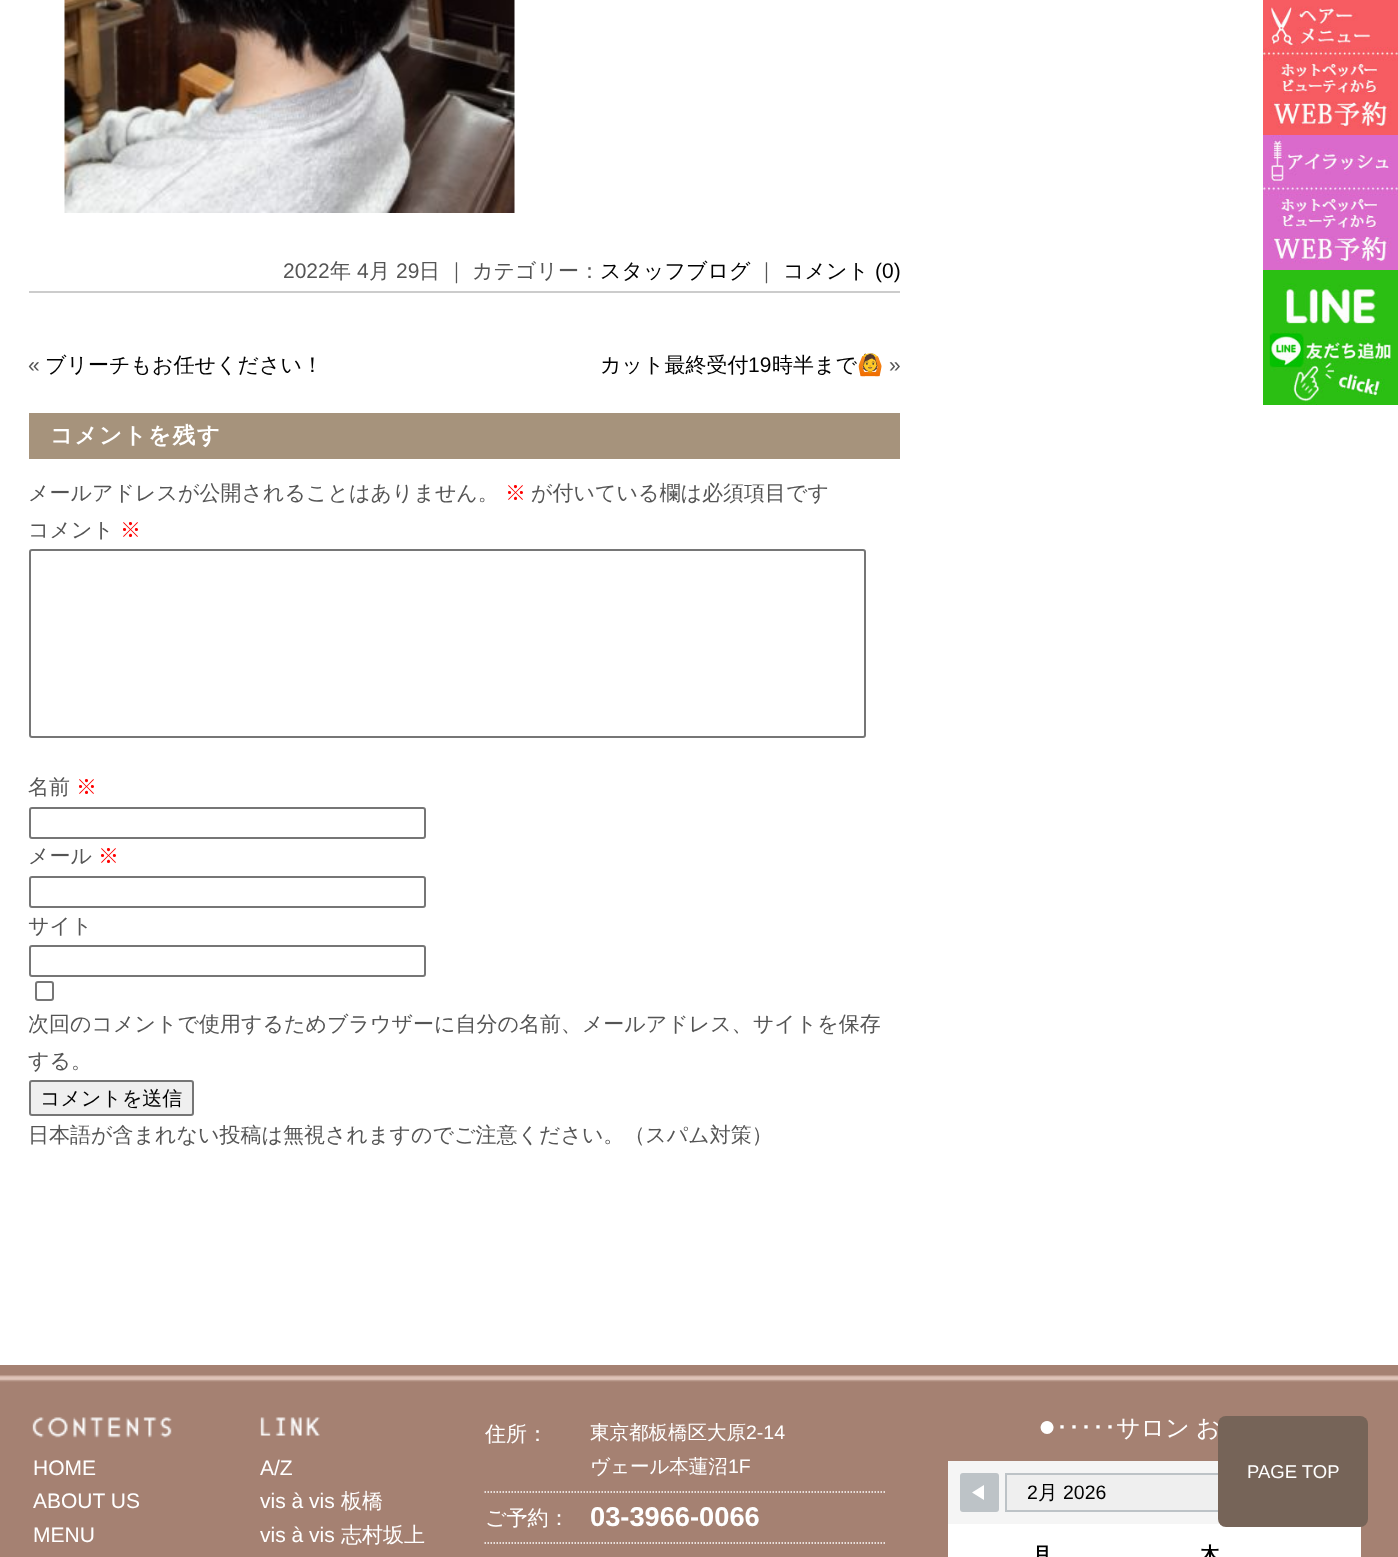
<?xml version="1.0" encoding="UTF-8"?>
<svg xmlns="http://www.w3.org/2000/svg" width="1398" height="1557">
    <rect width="100%" height="100%" fill="#FFFFFF"/>
    <image x="1263" y="0" width="135" height="135" href="img_01.png"/>
    <image x="1263" y="135" width="135" height="135" href="img_02.png"/>
    <image x="1263" y="270" width="135" height="135" href="img_03.png"/>
    <image x="64" y="0" width="451" height="213" href="img_04.png"/>
    <rect x="29" y="291" width="871" height="2" fill="#CCCCCC"/>
    <text x="283" y="278" font-family="Liberation Sans" font-size="21" fill="#555555">2022</text>
    <text x="330" y="278" font-family="WenQuanYi Zen Hei" font-size="21" font-weight="500" fill="#555555">年</text>
    <text x="357" y="278" font-family="Liberation Sans" font-size="21" fill="#555555">4</text>
    <text x="369" y="278" font-family="WenQuanYi Zen Hei" font-size="21" font-weight="500" fill="#555555">月</text>
    <text x="396" y="278" font-family="Liberation Sans" font-size="21" fill="#555555">29</text>
    <text x="419" y="278" font-family="WenQuanYi Zen Hei" font-size="21" font-weight="500" fill="#555555">日</text>
    <text x="446" y="278" font-family="WenQuanYi Zen Hei" font-size="21" font-weight="500" fill="#555555">｜</text>
    <text x="472" y="278" font-family="WenQuanYi Zen Hei" font-size="21" font-weight="500" fill="#555555">カテゴリー：</text>
    <text x="600" y="278" font-family="WenQuanYi Zen Hei" font-size="21" font-weight="500" fill="#000000">スタッフブログ</text>
    <text x="756" y="278" font-family="WenQuanYi Zen Hei" font-size="21" font-weight="500" fill="#555555">｜</text>
    <text x="783" y="278" font-family="WenQuanYi Zen Hei" font-size="21" font-weight="500" fill="#000000">コメント</text>
    <text x="875" y="278" font-family="Liberation Sans" font-size="21" fill="#000000">(0)</text>
    <text x="28" y="372" font-family="Liberation Sans" font-size="21" fill="#555555">«</text>
    <text x="45" y="372" font-family="WenQuanYi Zen Hei" font-size="21" font-weight="500" fill="#000000">ブリーチもお任せください！</text>
    <text x="600" y="372" font-family="WenQuanYi Zen Hei" font-size="21" font-weight="500" fill="#000000">カット最終受付</text>
    <text x="748" y="372" font-family="Liberation Sans" font-size="21" fill="#000000">19</text>
    <text x="772" y="372" font-family="WenQuanYi Zen Hei" font-size="21" font-weight="500" fill="#000000">時半まで</text>
    <text x="857" y="372" font-family="Noto Color Emoji" font-size="21" fill="#000000">🙆</text>
    <text x="889" y="372" font-family="Liberation Sans" font-size="21" fill="#555555">»</text>
    <rect x="29" y="413" width="871" height="46" fill="#A6937C"/>
    <text x="50" y="443" font-family="WenQuanYi Zen Hei" font-size="22.5" font-weight="700" letter-spacing="1.5" fill="#FFFFFF">コメントを残す</text>
    <text x="28" y="500" font-family="WenQuanYi Zen Hei" font-size="21" font-weight="500" fill="#555555">メールアドレスが公開されることはありません。</text>
    <text x="505" y="500" font-family="WenQuanYi Zen Hei" font-size="21" font-weight="500" fill="#FF0000">※</text>
    <text x="531" y="500" font-family="WenQuanYi Zen Hei" font-size="21" font-weight="500" fill="#555555">が付いている欄は必須項目です</text>
    <text x="28" y="537" font-family="WenQuanYi Zen Hei" font-size="21" font-weight="500" fill="#555555">コメント</text>
    <text x="120" y="537" font-family="WenQuanYi Zen Hei" font-size="21" font-weight="500" fill="#FF0000">※</text>
    <rect x="30" y="550" width="835" height="187" rx="2" fill="none" stroke="#767676" stroke-width="2"/>
    <text x="28" y="794" font-family="WenQuanYi Zen Hei" font-size="21" font-weight="500" fill="#555555">名前</text>
    <text x="76" y="794" font-family="WenQuanYi Zen Hei" font-size="21" font-weight="500" fill="#FF0000">※</text>
    <rect x="30" y="808" width="395" height="30" rx="2" fill="none" stroke="#767676" stroke-width="2"/>
    <text x="28" y="863" font-family="WenQuanYi Zen Hei" font-size="21" font-weight="500" fill="#555555">メール</text>
    <text x="98" y="863" font-family="WenQuanYi Zen Hei" font-size="21" font-weight="500" fill="#FF0000">※</text>
    <rect x="30" y="877" width="395" height="30" rx="2" fill="none" stroke="#767676" stroke-width="2"/>
    <text x="28" y="933" font-family="WenQuanYi Zen Hei" font-size="21" font-weight="500" fill="#555555">サイト</text>
    <rect x="30" y="946" width="395" height="30" rx="2" fill="none" stroke="#767676" stroke-width="2"/>
    <rect x="36" y="982" width="17" height="18" rx="2" fill="none" stroke="#767676" stroke-width="2"/>
    <text font-family="WenQuanYi Zen Hei" font-size="21" font-weight="500" fill="#555555">
        <tspan x="28" y="1031">次回のコメントで使用するためブラウザーに自分の名前、メールアドレス、サイトを保存</tspan>
        <tspan x="28" y="1068">する。</tspan>
    </text>
    <rect x="30" y="1081" width="163" height="34" rx="2" fill="#EFEFEF" stroke="#767676" stroke-width="2"/>
    <text x="40" y="1105" font-family="WenQuanYi Zen Hei" font-size="20" font-weight="500" fill="#000000">コメントを送信</text>
    <text x="28" y="1142" font-family="WenQuanYi Zen Hei" font-size="21" font-weight="500" fill="#555555">日本語が含まれない投稿は無視されますのでご注意ください。（スパム対策）</text>
    <rect x="0" y="1365" width="1398" height="192" fill="#A58172"/>
    <image x="0" y="1375" width="1398" height="7" href="img_05.png"/>
    <image x="32" y="1417" width="140" height="21" href="img_06.png"/>
    <text font-family="Liberation Sans" font-size="21" fill="#FFFFFF">
        <tspan x="33" y="1475">HOME</tspan>
        <tspan x="33" y="1508">ABOUT US</tspan>
        <tspan x="33" y="1542">MENU</tspan>
    </text>
    <image x="260" y="1417" width="60" height="19" href="img_07.png"/>
    <text font-family="Liberation Sans" font-size="21" fill="#FFFFFF">
        <tspan x="260" y="1475">A/Z</tspan>
        <tspan x="260" y="1508">vis à vis</tspan>
    </text>
    <text x="341" y="1508" font-family="WenQuanYi Zen Hei" font-size="21" font-weight="500" fill="#FFFFFF">板橋</text>
    <text x="260" y="1542" font-family="Liberation Sans" font-size="21" fill="#FFFFFF">vis à vis</text>
    <text x="341" y="1542" font-family="WenQuanYi Zen Hei" font-size="21" font-weight="500" fill="#FFFFFF">志村坂上</text>
    <path d="M 484.5 1492 H 589.5" fill="none" stroke="#FFFFFF" stroke-width="1.5" stroke-dasharray="1.5 1.5"/>
    <text x="485" y="1441" font-family="WenQuanYi Zen Hei" font-size="21" font-weight="500" fill="#FFFFFF">住所：</text>
    <path d="M 589.5 1492 H 886.5" fill="none" stroke="#FFFFFF" stroke-width="1.5" stroke-dasharray="1.5 1.5"/>
    <text x="590" y="1439" font-family="WenQuanYi Zen Hei" font-size="19.5" font-weight="500" fill="#FFFFFF">東京都板橋区大原</text>
    <text x="746" y="1439" font-family="Liberation Sans" font-size="19.5" fill="#FFFFFF">2-14</text>
    <text x="590" y="1473" font-family="WenQuanYi Zen Hei" font-size="19.5" font-weight="500" fill="#FFFFFF">ヴェール本蓮沼</text>
    <text x="728" y="1473" font-family="Liberation Sans" font-size="19.5" fill="#FFFFFF">1F</text>
    <path d="M 484.5 1543 H 589.5" fill="none" stroke="#FFFFFF" stroke-width="1.5" stroke-dasharray="1.5 1.5"/>
    <text x="485" y="1525" font-family="WenQuanYi Zen Hei" font-size="21" font-weight="500" fill="#FFFFFF">ご予約：</text>
    <path d="M 589.5 1543 H 886.5" fill="none" stroke="#FFFFFF" stroke-width="1.5" stroke-dasharray="1.5 1.5"/>
    <text x="590" y="1526" font-family="Liberation Sans" font-size="27.25" font-weight="700" fill="#FFFFFF">03-3966-0066</text>
    <text x="1038" y="1436" font-family="Liberation Sans" font-size="30" fill="#FFFFFF">●</text>
    <text x="1056" y="1436" font-family="IPAPGothic" font-size="24" fill="#FFFFFF">･････</text>
    <text x="1116" y="1436" word-spacing="-1" font-family="WenQuanYi Zen Hei" font-size="24" font-weight="500" fill="#FFFFFF">サロン お</text>
    <rect x="948" y="1524" width="413" height="33" fill="#FFFFFF"/>
    <rect x="948" y="1461" width="272" height="63" fill="#F5F5F5"/>
    <rect x="960" y="1473" width="39" height="39" rx="3" fill="#BDC3C7"/>
    <path d="M 984 1485 V 1500 L 972 1492.5 Z" fill="#FFFFFF"/>
    <rect x="1007" y="1475" width="211" height="35" fill="#EFEFEF"/>
    <rect x="1006" y="1474" width="297" height="37" fill="none" stroke="#BDC3C7" stroke-width="2"/>
    <text x="1027" y="1499" font-family="Liberation Sans" font-size="19.5" fill="#000000">2</text>
    <text x="1038" y="1499" font-family="WenQuanYi Zen Hei" font-size="19.5" font-weight="500" fill="#000000">月</text>
    <text x="1063" y="1499" font-family="Liberation Sans" font-size="19.5" fill="#000000">2026</text>
    <text x="1032" y="1561" font-family="WenQuanYi Zen Hei" font-size="19.5" font-weight="700" fill="#000000">月</text>
    <text x="1200" y="1561" font-family="WenQuanYi Zen Hei" font-size="19.5" font-weight="700" fill="#000000">木</text>
    <rect x="1218" y="1416" width="150" height="111" rx="8" fill="#766458"/>
    <text x="1247" y="1478" font-family="Liberation Sans" font-size="18.5" fill="#FFFFFF">PAGE TOP</text>
</svg>
